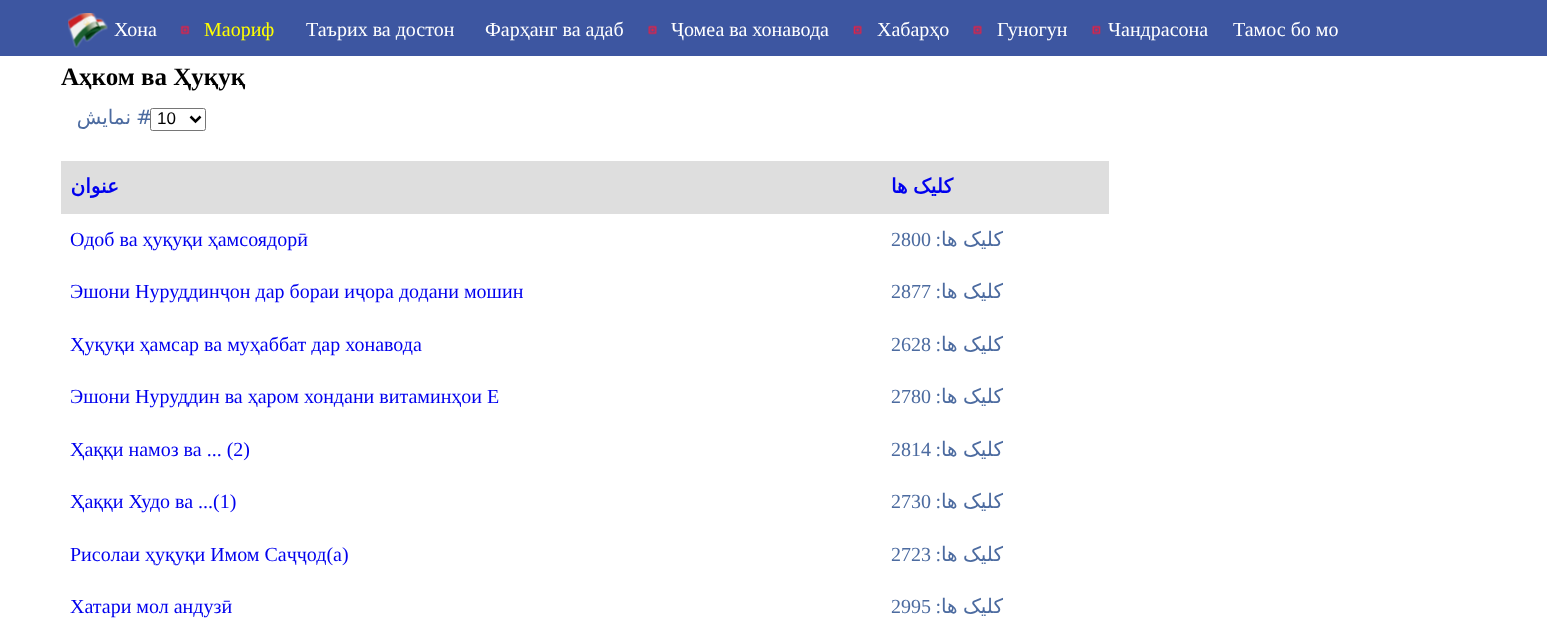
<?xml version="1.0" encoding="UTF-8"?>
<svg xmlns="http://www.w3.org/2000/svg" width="1547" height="637">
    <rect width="100%" height="100%" fill="#FFFFFF"/>
    <rect x="0" y="0" width="1547" height="56" fill="#3D56A1"/>
    <image x="68" y="13" width="40" height="35" href="img_01.png"/>
    <text x="114" y="36" font-family="Liberation Serif" font-size="20" fill="#FFFFFF">Хона</text>
    <image x="180" y="25" width="10" height="10" href="img_02.png"/>
    <text x="204" y="36" font-family="Liberation Serif" font-size="20" fill="#FFFF00">Маориф</text>
    <text x="306" y="36" font-family="Liberation Serif" font-size="20" fill="#FFFFFF">Таърих ва достон</text>
    <text x="485" y="36" font-family="Liberation Serif" font-size="20" fill="#FFFFFF">Фарҳанг ва адаб</text>
    <image x="648" y="25" width="9" height="10" href="img_03.png"/>
    <text x="671" y="36" font-family="Liberation Serif" font-size="20" fill="#FFFFFF">Ҷомеа ва хонавода</text>
    <image x="853" y="25" width="9" height="10" href="img_04.png"/>
    <text x="877" y="36" font-family="Liberation Serif" font-size="20" fill="#FFFFFF">Хабарҳо</text>
    <image x="973" y="25" width="9" height="10" href="img_03.png"/>
    <text x="997" y="36" font-family="Liberation Serif" font-size="20" fill="#FFFFFF">Гуногун</text>
    <image x="1091" y="25" width="10" height="10" href="img_05.png"/>
    <text x="1108" y="36" font-family="Liberation Serif" font-size="20" fill="#FFFFFF">Чандрасона</text>
    <text x="1233" y="36" font-family="Liberation Serif" font-size="20" fill="#FFFFFF">Тамос бо мо</text>
    <text x="61" y="85" font-family="Liberation Serif" font-size="25" font-weight="700" fill="#000000">Аҳком ва Ҳуқуқ</text>
    <text x="131" y="124" font-family="DejaVu Sans" font-size="20" direction="rtl" fill="#4C6BA0">نمایش</text>
    <text x="136" y="124" font-family="DejaVu Sans" font-size="20" fill="#4C6BA0">#</text>
    <rect x="150.5" y="108.5" width="55" height="22" rx="2" fill="#FFFFFF" stroke="#767676"/>
    <path d="M 190.5 116.5 L 195.5 121.5 L 200.5 116.5" fill="none" stroke="#000000" stroke-width="2.5"/>
    <text x="157" y="124" font-family="Liberation Sans" font-size="17" fill="#000000">10</text>
    <rect x="61" y="161" width="1048" height="53" fill="#DEDEDE"/>
    <text x="119" y="193" font-family="DejaVu Sans" font-size="20" font-weight="700" direction="rtl" fill="#0000EE">عنوان</text>
    <text x="953" y="193" word-spacing="-1" font-family="DejaVu Sans" font-size="20" font-weight="700" direction="rtl" fill="#0000EE">کلیک ها</text>
    <text x="70" y="246" font-family="Liberation Serif" font-size="20" fill="#0000EE">Одоб ва ҳуқуқи ҳамсоядорӣ</text>
    <text x="891" y="246" font-family="Liberation Serif" font-size="20" fill="#4C6BA0">2800</text>
    <text x="941" y="246" font-family="Liberation Serif" font-size="20" direction="rtl" fill="#4C6BA0">:</text>
    <text x="1003" y="246" word-spacing="-1" font-family="DejaVu Sans" font-size="20" direction="rtl" fill="#4C6BA0">کلیک ها</text>
    <text x="70" y="298" font-family="Liberation Serif" font-size="20" fill="#0000EE">Эшони Нуруддинҷон дар бораи иҷора додани мошин</text>
    <text x="891" y="298" font-family="Liberation Serif" font-size="20" fill="#4C6BA0">2877</text>
    <text x="941" y="298" font-family="Liberation Serif" font-size="20" direction="rtl" fill="#4C6BA0">:</text>
    <text x="1003" y="298" word-spacing="-1" font-family="DejaVu Sans" font-size="20" direction="rtl" fill="#4C6BA0">کلیک ها</text>
    <text x="70" y="351" font-family="Liberation Serif" font-size="20" fill="#0000EE">Ҳуқуқи ҳамсар ва муҳаббат дар хонавода</text>
    <text x="891" y="351" font-family="Liberation Serif" font-size="20" fill="#4C6BA0">2628</text>
    <text x="941" y="351" font-family="Liberation Serif" font-size="20" direction="rtl" fill="#4C6BA0">:</text>
    <text x="1003" y="351" word-spacing="-1" font-family="DejaVu Sans" font-size="20" direction="rtl" fill="#4C6BA0">کلیک ها</text>
    <text x="70" y="403" font-family="Liberation Serif" font-size="20" fill="#0000EE">Эшони Нуруддин ва ҳаром хондани витаминҳои Е</text>
    <text x="891" y="403" font-family="Liberation Serif" font-size="20" fill="#4C6BA0">2780</text>
    <text x="941" y="403" font-family="Liberation Serif" font-size="20" direction="rtl" fill="#4C6BA0">:</text>
    <text x="1003" y="403" word-spacing="-1" font-family="DejaVu Sans" font-size="20" direction="rtl" fill="#4C6BA0">کلیک ها</text>
    <text x="70" y="456" font-family="Liberation Serif" font-size="20" fill="#0000EE">Ҳаққи намоз ва ... (2)</text>
    <text x="891" y="456" font-family="Liberation Serif" font-size="20" fill="#4C6BA0">2814</text>
    <text x="941" y="456" font-family="Liberation Serif" font-size="20" direction="rtl" fill="#4C6BA0">:</text>
    <text x="1003" y="456" word-spacing="-1" font-family="DejaVu Sans" font-size="20" direction="rtl" fill="#4C6BA0">کلیک ها</text>
    <text x="70" y="508" font-family="Liberation Serif" font-size="20" fill="#0000EE">Ҳаққи Худо ва ...(1)</text>
    <text x="891" y="508" font-family="Liberation Serif" font-size="20" fill="#4C6BA0">2730</text>
    <text x="941" y="508" font-family="Liberation Serif" font-size="20" direction="rtl" fill="#4C6BA0">:</text>
    <text x="1003" y="508" word-spacing="-1" font-family="DejaVu Sans" font-size="20" direction="rtl" fill="#4C6BA0">کلیک ها</text>
    <text x="70" y="561" font-family="Liberation Serif" font-size="20" fill="#0000EE">Рисолаи ҳуқуқи Имом Саҷҷод(а)</text>
    <text x="891" y="561" font-family="Liberation Serif" font-size="20" fill="#4C6BA0">2723</text>
    <text x="941" y="561" font-family="Liberation Serif" font-size="20" direction="rtl" fill="#4C6BA0">:</text>
    <text x="1003" y="561" word-spacing="-1" font-family="DejaVu Sans" font-size="20" direction="rtl" fill="#4C6BA0">کلیک ها</text>
    <text x="70" y="613" font-family="Liberation Serif" font-size="20" fill="#0000EE">Хатари мол андузӣ</text>
    <text x="891" y="613" font-family="Liberation Serif" font-size="20" fill="#4C6BA0">2995</text>
    <text x="941" y="613" font-family="Liberation Serif" font-size="20" direction="rtl" fill="#4C6BA0">:</text>
    <text x="1003" y="613" word-spacing="-1" font-family="DejaVu Sans" font-size="20" direction="rtl" fill="#4C6BA0">کلیک ها</text>
</svg>
